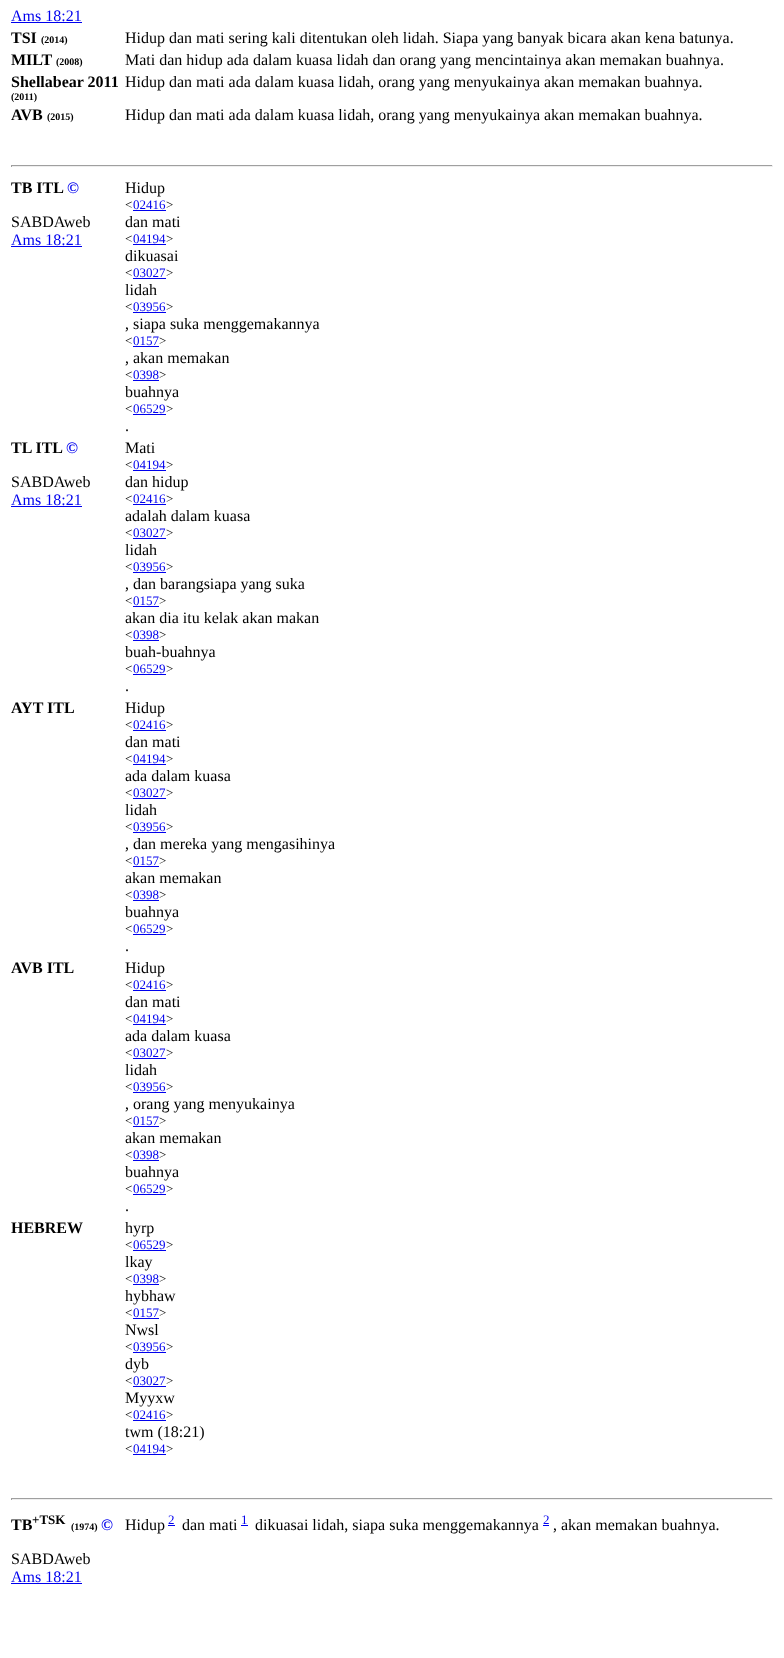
<?xml version="1.0" encoding="UTF-8"?>
<svg xmlns="http://www.w3.org/2000/svg" width="784" height="1658">
    <rect width="100%" height="100%" fill="#FFFFFF"/>
    <text x="11" y="21" font-family="Liberation Serif" font-size="16" fill="#0000EE">Ams 18:21</text>
    <rect x="11" y="22" width="71" height="1" fill="#0000EE"/>
    <text x="11" y="43" font-family="Liberation Serif" font-size="16" font-weight="700" fill="#000000">TSI</text>
    <text x="41" y="43" font-family="Liberation Serif" font-size="10" font-weight="700" fill="#000000">(2014)</text>
    <text x="125" y="43" font-family="Liberation Serif" font-size="16" fill="#000000">Hidup dan mati sering kali ditentukan oleh lidah. Siapa yang banyak bicara akan kena batunya.</text>
    <text x="11" y="65" font-family="Liberation Serif" font-size="16" font-weight="700" fill="#000000">MILT</text>
    <text x="56" y="65" font-family="Liberation Serif" font-size="10" font-weight="700" fill="#000000">(2008)</text>
    <text x="125" y="65" font-family="Liberation Serif" font-size="16" fill="#000000">Mati dan hidup ada dalam kuasa lidah dan orang yang mencintainya akan memakan buahnya.</text>
    <text x="11" y="87" font-family="Liberation Serif" font-size="16" font-weight="700" fill="#000000">Shellabear 2011</text>
    <text x="11" y="100" font-family="Liberation Serif" font-size="10" font-weight="700" fill="#000000">(2011)</text>
    <text x="125" y="87" font-family="Liberation Serif" font-size="16" fill="#000000">Hidup dan mati ada dalam kuasa lidah, orang yang menyukainya akan memakan buahnya.</text>
    <text x="11" y="120" font-family="Liberation Serif" font-size="16" font-weight="700" fill="#000000">AVB</text>
    <text x="47" y="120" font-family="Liberation Serif" font-size="10" font-weight="700" fill="#000000">(2015)</text>
    <text x="125" y="120" font-family="Liberation Serif" font-size="16" fill="#000000">Hidup dan mati ada dalam kuasa lidah, orang yang menyukainya akan memakan buahnya.</text>
    <rect x="11" y="165" width="762" height="1" fill="#9F9F9F"/>
    <rect x="772" y="165" width="1" height="2" fill="#EEEEEE"/>
    <rect x="11" y="166" width="762" height="1" fill="#EEEEEE"/>
    <rect x="11" y="165" width="1" height="2" fill="#9F9F9F"/>
    <text x="11" y="193" font-family="Liberation Serif" font-size="16" font-weight="700" fill="#000000">TB ITL</text>
    <text x="67" y="193" font-family="Liberation Serif" font-size="16" font-weight="700" fill="#0000EE">©</text>
    <text x="11" y="227" font-family="Liberation Serif" font-size="16" fill="#000000">SABDAweb</text>
    <text x="11" y="245" font-family="Liberation Serif" font-size="16" fill="#0000EE">Ams 18:21</text>
    <rect x="11" y="246" width="71" height="1" fill="#0000EE"/>
    <text x="125" y="193" font-family="Liberation Serif" font-size="16" fill="#000000">Hidup</text>
    <text x="125" y="209" font-family="Liberation Serif" font-size="13" fill="#000000">&lt;</text>
    <text x="133" y="209" font-family="Liberation Serif" font-size="13" fill="#0000EE">02416</text>
    <rect x="133" y="210" width="33" height="1" fill="#0000EE"/>
    <text x="166" y="209" font-family="Liberation Serif" font-size="13" fill="#000000">&gt;</text>
    <text x="125" y="227" font-family="Liberation Serif" font-size="16" fill="#000000">dan mati</text>
    <text x="125" y="243" font-family="Liberation Serif" font-size="13" fill="#000000">&lt;</text>
    <text x="133" y="243" font-family="Liberation Serif" font-size="13" fill="#0000EE">04194</text>
    <rect x="133" y="244" width="33" height="1" fill="#0000EE"/>
    <text x="166" y="243" font-family="Liberation Serif" font-size="13" fill="#000000">&gt;</text>
    <text x="125" y="261" font-family="Liberation Serif" font-size="16" fill="#000000">dikuasai</text>
    <text x="125" y="277" font-family="Liberation Serif" font-size="13" fill="#000000">&lt;</text>
    <text x="133" y="277" font-family="Liberation Serif" font-size="13" fill="#0000EE">03027</text>
    <rect x="133" y="278" width="33" height="1" fill="#0000EE"/>
    <text x="166" y="277" font-family="Liberation Serif" font-size="13" fill="#000000">&gt;</text>
    <text x="125" y="295" font-family="Liberation Serif" font-size="16" fill="#000000">lidah</text>
    <text x="125" y="311" font-family="Liberation Serif" font-size="13" fill="#000000">&lt;</text>
    <text x="133" y="311" font-family="Liberation Serif" font-size="13" fill="#0000EE">03956</text>
    <rect x="133" y="312" width="33" height="1" fill="#0000EE"/>
    <text x="166" y="311" font-family="Liberation Serif" font-size="13" fill="#000000">&gt;</text>
    <text x="125" y="329" font-family="Liberation Serif" font-size="16" fill="#000000">, siapa suka menggemakannya</text>
    <text x="125" y="345" font-family="Liberation Serif" font-size="13" fill="#000000">&lt;</text>
    <text x="133" y="345" font-family="Liberation Serif" font-size="13" fill="#0000EE">0157</text>
    <rect x="133" y="346" width="26" height="1" fill="#0000EE"/>
    <text x="159" y="345" font-family="Liberation Serif" font-size="13" fill="#000000">&gt;</text>
    <text x="125" y="363" font-family="Liberation Serif" font-size="16" fill="#000000">, akan memakan</text>
    <text x="125" y="379" font-family="Liberation Serif" font-size="13" fill="#000000">&lt;</text>
    <text x="133" y="379" font-family="Liberation Serif" font-size="13" fill="#0000EE">0398</text>
    <rect x="133" y="380" width="26" height="1" fill="#0000EE"/>
    <text x="159" y="379" font-family="Liberation Serif" font-size="13" fill="#000000">&gt;</text>
    <text x="125" y="397" font-family="Liberation Serif" font-size="16" fill="#000000">buahnya</text>
    <text x="125" y="413" font-family="Liberation Serif" font-size="13" fill="#000000">&lt;</text>
    <text x="133" y="413" font-family="Liberation Serif" font-size="13" fill="#0000EE">06529</text>
    <rect x="133" y="414" width="33" height="1" fill="#0000EE"/>
    <text x="166" y="413" font-family="Liberation Serif" font-size="13" fill="#000000">&gt;</text>
    <text x="125" y="431" font-family="Liberation Serif" font-size="16" fill="#000000">.</text>
    <text x="11" y="453" font-family="Liberation Serif" font-size="16" font-weight="700" fill="#000000">TL ITL</text>
    <text x="66" y="453" font-family="Liberation Serif" font-size="16" font-weight="700" fill="#0000EE">©</text>
    <text x="11" y="487" font-family="Liberation Serif" font-size="16" fill="#000000">SABDAweb</text>
    <text x="11" y="505" font-family="Liberation Serif" font-size="16" fill="#0000EE">Ams 18:21</text>
    <rect x="11" y="506" width="71" height="1" fill="#0000EE"/>
    <text x="125" y="453" font-family="Liberation Serif" font-size="16" fill="#000000">Mati</text>
    <text x="125" y="469" font-family="Liberation Serif" font-size="13" fill="#000000">&lt;</text>
    <text x="133" y="469" font-family="Liberation Serif" font-size="13" fill="#0000EE">04194</text>
    <rect x="133" y="470" width="33" height="1" fill="#0000EE"/>
    <text x="166" y="469" font-family="Liberation Serif" font-size="13" fill="#000000">&gt;</text>
    <text x="125" y="487" font-family="Liberation Serif" font-size="16" fill="#000000">dan hidup</text>
    <text x="125" y="503" font-family="Liberation Serif" font-size="13" fill="#000000">&lt;</text>
    <text x="133" y="503" font-family="Liberation Serif" font-size="13" fill="#0000EE">02416</text>
    <rect x="133" y="504" width="33" height="1" fill="#0000EE"/>
    <text x="166" y="503" font-family="Liberation Serif" font-size="13" fill="#000000">&gt;</text>
    <text x="125" y="521" font-family="Liberation Serif" font-size="16" fill="#000000">adalah dalam kuasa</text>
    <text x="125" y="537" font-family="Liberation Serif" font-size="13" fill="#000000">&lt;</text>
    <text x="133" y="537" font-family="Liberation Serif" font-size="13" fill="#0000EE">03027</text>
    <rect x="133" y="538" width="33" height="1" fill="#0000EE"/>
    <text x="166" y="537" font-family="Liberation Serif" font-size="13" fill="#000000">&gt;</text>
    <text x="125" y="555" font-family="Liberation Serif" font-size="16" fill="#000000">lidah</text>
    <text x="125" y="571" font-family="Liberation Serif" font-size="13" fill="#000000">&lt;</text>
    <text x="133" y="571" font-family="Liberation Serif" font-size="13" fill="#0000EE">03956</text>
    <rect x="133" y="572" width="33" height="1" fill="#0000EE"/>
    <text x="166" y="571" font-family="Liberation Serif" font-size="13" fill="#000000">&gt;</text>
    <text x="125" y="589" font-family="Liberation Serif" font-size="16" fill="#000000">, dan barangsiapa yang suka</text>
    <text x="125" y="605" font-family="Liberation Serif" font-size="13" fill="#000000">&lt;</text>
    <text x="133" y="605" font-family="Liberation Serif" font-size="13" fill="#0000EE">0157</text>
    <rect x="133" y="606" width="26" height="1" fill="#0000EE"/>
    <text x="159" y="605" font-family="Liberation Serif" font-size="13" fill="#000000">&gt;</text>
    <text x="125" y="623" font-family="Liberation Serif" font-size="16" fill="#000000">akan dia itu kelak akan makan</text>
    <text x="125" y="639" font-family="Liberation Serif" font-size="13" fill="#000000">&lt;</text>
    <text x="133" y="639" font-family="Liberation Serif" font-size="13" fill="#0000EE">0398</text>
    <rect x="133" y="640" width="26" height="1" fill="#0000EE"/>
    <text x="159" y="639" font-family="Liberation Serif" font-size="13" fill="#000000">&gt;</text>
    <text x="125" y="657" font-family="Liberation Serif" font-size="16" fill="#000000">buah-buahnya</text>
    <text x="125" y="673" font-family="Liberation Serif" font-size="13" fill="#000000">&lt;</text>
    <text x="133" y="673" font-family="Liberation Serif" font-size="13" fill="#0000EE">06529</text>
    <rect x="133" y="674" width="33" height="1" fill="#0000EE"/>
    <text x="166" y="673" font-family="Liberation Serif" font-size="13" fill="#000000">&gt;</text>
    <text x="125" y="691" font-family="Liberation Serif" font-size="16" fill="#000000">.</text>
    <text x="11" y="713" font-family="Liberation Serif" font-size="16" font-weight="700" fill="#000000">AYT ITL</text>
    <text x="125" y="713" font-family="Liberation Serif" font-size="16" fill="#000000">Hidup</text>
    <text x="125" y="729" font-family="Liberation Serif" font-size="13" fill="#000000">&lt;</text>
    <text x="133" y="729" font-family="Liberation Serif" font-size="13" fill="#0000EE">02416</text>
    <rect x="133" y="730" width="33" height="1" fill="#0000EE"/>
    <text x="166" y="729" font-family="Liberation Serif" font-size="13" fill="#000000">&gt;</text>
    <text x="125" y="747" font-family="Liberation Serif" font-size="16" fill="#000000">dan mati</text>
    <text x="125" y="763" font-family="Liberation Serif" font-size="13" fill="#000000">&lt;</text>
    <text x="133" y="763" font-family="Liberation Serif" font-size="13" fill="#0000EE">04194</text>
    <rect x="133" y="764" width="33" height="1" fill="#0000EE"/>
    <text x="166" y="763" font-family="Liberation Serif" font-size="13" fill="#000000">&gt;</text>
    <text x="125" y="781" font-family="Liberation Serif" font-size="16" fill="#000000">ada dalam kuasa</text>
    <text x="125" y="797" font-family="Liberation Serif" font-size="13" fill="#000000">&lt;</text>
    <text x="133" y="797" font-family="Liberation Serif" font-size="13" fill="#0000EE">03027</text>
    <rect x="133" y="798" width="33" height="1" fill="#0000EE"/>
    <text x="166" y="797" font-family="Liberation Serif" font-size="13" fill="#000000">&gt;</text>
    <text x="125" y="815" font-family="Liberation Serif" font-size="16" fill="#000000">lidah</text>
    <text x="125" y="831" font-family="Liberation Serif" font-size="13" fill="#000000">&lt;</text>
    <text x="133" y="831" font-family="Liberation Serif" font-size="13" fill="#0000EE">03956</text>
    <rect x="133" y="832" width="33" height="1" fill="#0000EE"/>
    <text x="166" y="831" font-family="Liberation Serif" font-size="13" fill="#000000">&gt;</text>
    <text x="125" y="849" font-family="Liberation Serif" font-size="16" fill="#000000">, dan mereka yang mengasihinya</text>
    <text x="125" y="865" font-family="Liberation Serif" font-size="13" fill="#000000">&lt;</text>
    <text x="133" y="865" font-family="Liberation Serif" font-size="13" fill="#0000EE">0157</text>
    <rect x="133" y="866" width="26" height="1" fill="#0000EE"/>
    <text x="159" y="865" font-family="Liberation Serif" font-size="13" fill="#000000">&gt;</text>
    <text x="125" y="883" font-family="Liberation Serif" font-size="16" fill="#000000">akan memakan</text>
    <text x="125" y="899" font-family="Liberation Serif" font-size="13" fill="#000000">&lt;</text>
    <text x="133" y="899" font-family="Liberation Serif" font-size="13" fill="#0000EE">0398</text>
    <rect x="133" y="900" width="26" height="1" fill="#0000EE"/>
    <text x="159" y="899" font-family="Liberation Serif" font-size="13" fill="#000000">&gt;</text>
    <text x="125" y="917" font-family="Liberation Serif" font-size="16" fill="#000000">buahnya</text>
    <text x="125" y="933" font-family="Liberation Serif" font-size="13" fill="#000000">&lt;</text>
    <text x="133" y="933" font-family="Liberation Serif" font-size="13" fill="#0000EE">06529</text>
    <rect x="133" y="934" width="33" height="1" fill="#0000EE"/>
    <text x="166" y="933" font-family="Liberation Serif" font-size="13" fill="#000000">&gt;</text>
    <text x="125" y="951" font-family="Liberation Serif" font-size="16" fill="#000000">.</text>
    <text x="11" y="973" font-family="Liberation Serif" font-size="16" font-weight="700" fill="#000000">AVB ITL</text>
    <text x="125" y="973" font-family="Liberation Serif" font-size="16" fill="#000000">Hidup</text>
    <text x="125" y="989" font-family="Liberation Serif" font-size="13" fill="#000000">&lt;</text>
    <text x="133" y="989" font-family="Liberation Serif" font-size="13" fill="#0000EE">02416</text>
    <rect x="133" y="990" width="33" height="1" fill="#0000EE"/>
    <text x="166" y="989" font-family="Liberation Serif" font-size="13" fill="#000000">&gt;</text>
    <text x="125" y="1007" font-family="Liberation Serif" font-size="16" fill="#000000">dan mati</text>
    <text x="125" y="1023" font-family="Liberation Serif" font-size="13" fill="#000000">&lt;</text>
    <text x="133" y="1023" font-family="Liberation Serif" font-size="13" fill="#0000EE">04194</text>
    <rect x="133" y="1024" width="33" height="1" fill="#0000EE"/>
    <text x="166" y="1023" font-family="Liberation Serif" font-size="13" fill="#000000">&gt;</text>
    <text x="125" y="1041" font-family="Liberation Serif" font-size="16" fill="#000000">ada dalam kuasa</text>
    <text x="125" y="1057" font-family="Liberation Serif" font-size="13" fill="#000000">&lt;</text>
    <text x="133" y="1057" font-family="Liberation Serif" font-size="13" fill="#0000EE">03027</text>
    <rect x="133" y="1058" width="33" height="1" fill="#0000EE"/>
    <text x="166" y="1057" font-family="Liberation Serif" font-size="13" fill="#000000">&gt;</text>
    <text x="125" y="1075" font-family="Liberation Serif" font-size="16" fill="#000000">lidah</text>
    <text x="125" y="1091" font-family="Liberation Serif" font-size="13" fill="#000000">&lt;</text>
    <text x="133" y="1091" font-family="Liberation Serif" font-size="13" fill="#0000EE">03956</text>
    <rect x="133" y="1092" width="33" height="1" fill="#0000EE"/>
    <text x="166" y="1091" font-family="Liberation Serif" font-size="13" fill="#000000">&gt;</text>
    <text x="125" y="1109" font-family="Liberation Serif" font-size="16" fill="#000000">, orang yang menyukainya</text>
    <text x="125" y="1125" font-family="Liberation Serif" font-size="13" fill="#000000">&lt;</text>
    <text x="133" y="1125" font-family="Liberation Serif" font-size="13" fill="#0000EE">0157</text>
    <rect x="133" y="1126" width="26" height="1" fill="#0000EE"/>
    <text x="159" y="1125" font-family="Liberation Serif" font-size="13" fill="#000000">&gt;</text>
    <text x="125" y="1143" font-family="Liberation Serif" font-size="16" fill="#000000">akan memakan</text>
    <text x="125" y="1159" font-family="Liberation Serif" font-size="13" fill="#000000">&lt;</text>
    <text x="133" y="1159" font-family="Liberation Serif" font-size="13" fill="#0000EE">0398</text>
    <rect x="133" y="1160" width="26" height="1" fill="#0000EE"/>
    <text x="159" y="1159" font-family="Liberation Serif" font-size="13" fill="#000000">&gt;</text>
    <text x="125" y="1177" font-family="Liberation Serif" font-size="16" fill="#000000">buahnya</text>
    <text x="125" y="1193" font-family="Liberation Serif" font-size="13" fill="#000000">&lt;</text>
    <text x="133" y="1193" font-family="Liberation Serif" font-size="13" fill="#0000EE">06529</text>
    <rect x="133" y="1194" width="33" height="1" fill="#0000EE"/>
    <text x="166" y="1193" font-family="Liberation Serif" font-size="13" fill="#000000">&gt;</text>
    <text x="125" y="1211" font-family="Liberation Serif" font-size="16" fill="#000000">.</text>
    <text x="11" y="1233" font-family="Liberation Serif" font-size="16" font-weight="700" fill="#000000">HEBREW</text>
    <text x="125" y="1233" font-family="Liberation Serif" font-size="16" fill="#000000">hyrp</text>
    <text x="125" y="1249" font-family="Liberation Serif" font-size="13" fill="#000000">&lt;</text>
    <text x="133" y="1249" font-family="Liberation Serif" font-size="13" fill="#0000EE">06529</text>
    <rect x="133" y="1250" width="33" height="1" fill="#0000EE"/>
    <text x="166" y="1249" font-family="Liberation Serif" font-size="13" fill="#000000">&gt;</text>
    <text x="125" y="1267" font-family="Liberation Serif" font-size="16" fill="#000000">lkay</text>
    <text x="125" y="1283" font-family="Liberation Serif" font-size="13" fill="#000000">&lt;</text>
    <text x="133" y="1283" font-family="Liberation Serif" font-size="13" fill="#0000EE">0398</text>
    <rect x="133" y="1284" width="26" height="1" fill="#0000EE"/>
    <text x="159" y="1283" font-family="Liberation Serif" font-size="13" fill="#000000">&gt;</text>
    <text x="125" y="1301" font-family="Liberation Serif" font-size="16" fill="#000000">hybhaw</text>
    <text x="125" y="1317" font-family="Liberation Serif" font-size="13" fill="#000000">&lt;</text>
    <text x="133" y="1317" font-family="Liberation Serif" font-size="13" fill="#0000EE">0157</text>
    <rect x="133" y="1318" width="26" height="1" fill="#0000EE"/>
    <text x="159" y="1317" font-family="Liberation Serif" font-size="13" fill="#000000">&gt;</text>
    <text x="125" y="1335" font-family="Liberation Serif" font-size="16" fill="#000000">Nwsl</text>
    <text x="125" y="1351" font-family="Liberation Serif" font-size="13" fill="#000000">&lt;</text>
    <text x="133" y="1351" font-family="Liberation Serif" font-size="13" fill="#0000EE">03956</text>
    <rect x="133" y="1352" width="33" height="1" fill="#0000EE"/>
    <text x="166" y="1351" font-family="Liberation Serif" font-size="13" fill="#000000">&gt;</text>
    <text x="125" y="1369" font-family="Liberation Serif" font-size="16" fill="#000000">dyb</text>
    <text x="125" y="1385" font-family="Liberation Serif" font-size="13" fill="#000000">&lt;</text>
    <text x="133" y="1385" font-family="Liberation Serif" font-size="13" fill="#0000EE">03027</text>
    <rect x="133" y="1386" width="33" height="1" fill="#0000EE"/>
    <text x="166" y="1385" font-family="Liberation Serif" font-size="13" fill="#000000">&gt;</text>
    <text x="125" y="1403" font-family="Liberation Serif" font-size="16" fill="#000000">Myyxw</text>
    <text x="125" y="1419" font-family="Liberation Serif" font-size="13" fill="#000000">&lt;</text>
    <text x="133" y="1419" font-family="Liberation Serif" font-size="13" fill="#0000EE">02416</text>
    <rect x="133" y="1420" width="33" height="1" fill="#0000EE"/>
    <text x="166" y="1419" font-family="Liberation Serif" font-size="13" fill="#000000">&gt;</text>
    <text x="125" y="1437" font-family="Liberation Serif" font-size="16" fill="#000000">twm (18:21)</text>
    <text x="125" y="1453" font-family="Liberation Serif" font-size="13" fill="#000000">&lt;</text>
    <text x="133" y="1453" font-family="Liberation Serif" font-size="13" fill="#0000EE">04194</text>
    <rect x="133" y="1454" width="33" height="1" fill="#0000EE"/>
    <text x="166" y="1453" font-family="Liberation Serif" font-size="13" fill="#000000">&gt;</text>
    <rect x="11" y="1498" width="762" height="1" fill="#9F9F9F"/>
    <rect x="772" y="1498" width="1" height="2" fill="#EEEEEE"/>
    <rect x="11" y="1499" width="762" height="1" fill="#EEEEEE"/>
    <rect x="11" y="1498" width="1" height="2" fill="#9F9F9F"/>
    <text x="11" y="1530" font-family="Liberation Serif" font-size="16" font-weight="700" fill="#000000">TB</text>
    <text x="32" y="1524" font-family="Liberation Serif" font-size="13" font-weight="700" fill="#000000">+TSK</text>
    <text x="71" y="1530" font-family="Liberation Serif" font-size="10" font-weight="700" fill="#000000">(1974)</text>
    <text x="101" y="1530" font-family="Liberation Serif" font-size="16" font-weight="700" fill="#0000EE">©</text>
    <text x="11" y="1564" font-family="Liberation Serif" font-size="16" fill="#000000">SABDAweb</text>
    <text x="11" y="1582" font-family="Liberation Serif" font-size="16" fill="#0000EE">Ams 18:21</text>
    <rect x="11" y="1583" width="71" height="1" fill="#0000EE"/>
    <text x="125" y="1530" font-family="Liberation Serif" font-size="16" fill="#000000">Hidup</text>
    <text x="168" y="1524" font-family="Liberation Serif" font-size="13" fill="#0000EE">2</text>
    <rect x="168" y="1525" width="7" height="1" fill="#0000EE"/>
    <text x="182" y="1530" font-family="Liberation Serif" font-size="16" fill="#000000">dan mati</text>
    <text x="241" y="1524" font-family="Liberation Serif" font-size="13" fill="#0000EE">1</text>
    <rect x="241" y="1525" width="7" height="1" fill="#0000EE"/>
    <text x="255" y="1530" font-family="Liberation Serif" font-size="16" fill="#000000">dikuasai lidah, siapa suka menggemakannya</text>
    <text x="543" y="1524" font-family="Liberation Serif" font-size="13" fill="#0000EE">2</text>
    <rect x="543" y="1525" width="6" height="1" fill="#0000EE"/>
    <text x="553" y="1530" font-family="Liberation Serif" font-size="16" fill="#000000">, akan memakan buahnya.</text>
</svg>
